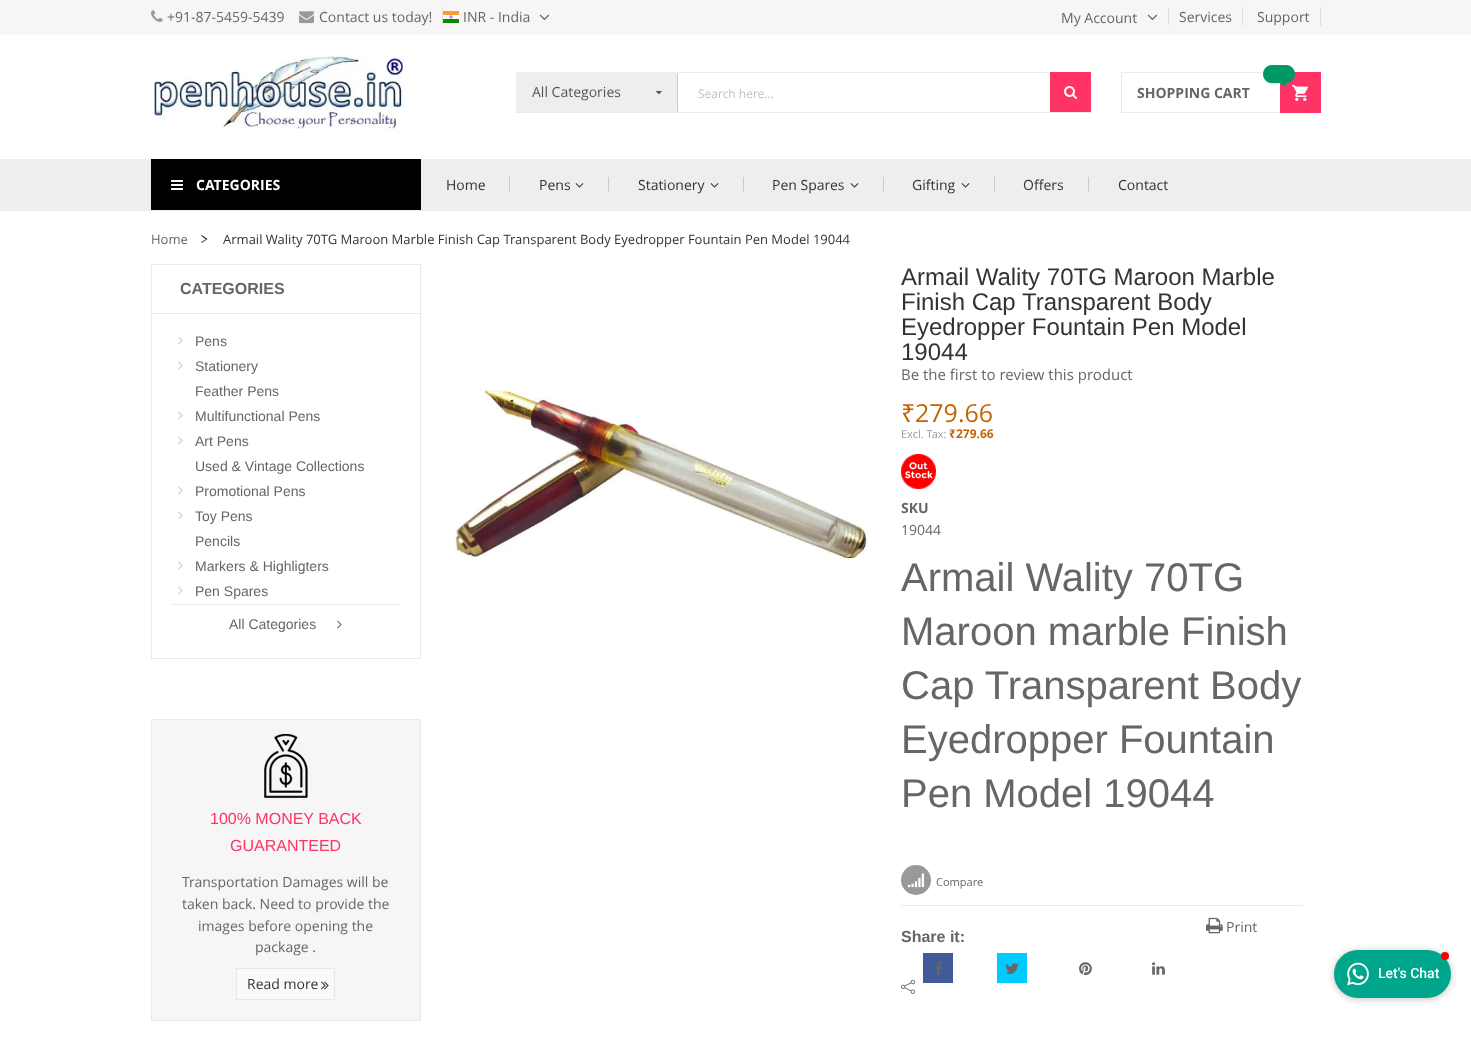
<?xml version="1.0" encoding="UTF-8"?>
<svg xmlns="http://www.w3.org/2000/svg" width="1471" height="1048">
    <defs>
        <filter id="blur1" x="-50%" y="-200%" width="200%" height="500%"><feGaussianBlur stdDeviation="3.5"/></filter>
    </defs>
    <rect width="100%" height="100%" fill="#FFFFFF"/>
    <rect x="0" y="0" width="1471" height="35" fill="#F6F6F6"/>
    <image x="151" y="10" width="12" height="12" href="img_01.png"/>
    <text x="167" y="22" font-family="Open Sans" font-size="14" fill="#666666">+91-87-5459-5439</text>
    <rect x="442" y="7" width="1" height="19" fill="#E0E0E0"/>
    <image x="299" y="11" width="15" height="13" href="img_02.png"/>
    <text x="319" y="22" font-family="Open Sans" font-size="14" fill="#666666">Contact us today!</text>
    <image x="443" y="11" width="16" height="12" href="img_03.png"/>
    <text x="463" y="22" font-family="Open Sans" font-size="14" fill="#666666">INR - India</text>
    <image x="539" y="14" width="11" height="7" href="img_04.png"/>
    <text x="1061" y="23" font-family="Open Sans" font-size="14" fill="#666666">My Account</text>
    <rect x="1168" y="8" width="1" height="17" fill="#E0E0E0"/>
    <image x="1147" y="14" width="11" height="7" href="img_04.png"/>
    <text x="1179" y="22" font-family="Open Sans" font-size="14" fill="#666666">Services</text>
    <rect x="1242" y="7" width="1" height="19" fill="#E0E0E0"/>
    <text x="1257" y="22" font-family="Open Sans" font-size="14" fill="#666666">Support</text>
    <rect x="1320" y="7" width="1" height="19" fill="#E0E0E0"/>
    <image x="151" y="55" width="253" height="74" href="img_05.png"/>
    <rect x="516.5" y="72.5" width="574" height="40" fill="none" stroke="#EAEAEA"/>
    <rect x="517" y="73" width="160" height="39" rx="3" fill="#EEEEEE"/>
    <text x="532" y="97" font-family="Open Sans" font-size="14" fill="#555555">All Categories</text>
    <image x="656" y="91" width="6" height="4" href="img_06.png"/>
    <rect x="677" y="73" width="1" height="39" fill="#CCCCCC"/>
    <text x="698" y="98" font-family="Open Sans" font-size="12" fill="#C2C2C2">Search here...</text>
    <rect x="1050" y="72" width="41" height="40" fill="#FF3366"/>
    <image x="1064" y="86" width="13" height="13" href="img_07.png"/>
    <rect x="1121.5" y="72.5" width="199" height="40" fill="none" stroke="#EAEAEA"/>
    <rect x="1280" y="72" width="41" height="41" fill="#FF3366"/>
    <image x="1292" y="85" width="16" height="16" href="img_09.png"/>
    <image x="1263" y="65" width="32" height="22" href="img_08.png"/>
    <text x="1137" y="98" font-family="Open Sans" font-size="14" font-weight="700" fill="#666666">SHOPPING CART</text>
    <rect x="0" y="159" width="1471" height="52" fill="#EEEEEE"/>
    <rect x="151" y="159" width="270" height="51" fill="#000000"/>
    <image x="171" y="180" width="12" height="10" href="img_10.png"/>
    <text x="196" y="190" font-family="Open Sans" font-size="14" font-weight="700" fill="#FFFFFF">CATEGORIES</text>
    <text x="446" y="190" font-family="Open Sans" font-size="14" fill="#333333">Home</text>
    <rect x="509" y="177" width="1" height="15" fill="#CACACA"/>
    <text x="539" y="190" font-family="Open Sans" font-size="14" fill="#333333">Pens</text>
    <image x="575" y="183" width="9" height="5" href="img_11.png"/>
    <rect x="608" y="177" width="1" height="15" fill="#CACACA"/>
    <text x="638" y="190" font-family="Open Sans" font-size="14" fill="#333333">Stationery</text>
    <image x="710" y="183" width="9" height="5" href="img_11.png"/>
    <rect x="743" y="177" width="1" height="15" fill="#CACACA"/>
    <text x="772" y="190" font-family="Open Sans" font-size="14" fill="#333333">Pen Spares</text>
    <image x="850" y="183" width="9" height="5" href="img_11.png"/>
    <rect x="883" y="177" width="1" height="15" fill="#CACACA"/>
    <text x="912" y="190" font-family="Open Sans" font-size="14" fill="#333333">Gifting</text>
    <image x="961" y="183" width="9" height="5" href="img_11.png"/>
    <rect x="994" y="177" width="1" height="15" fill="#CACACA"/>
    <text x="1023" y="190" font-family="Open Sans" font-size="14" fill="#333333">Offers</text>
    <rect x="1088" y="177" width="1" height="15" fill="#CACACA"/>
    <text x="1118" y="190" font-family="Open Sans" font-size="14" fill="#333333">Contact</text>
    <text x="151" y="244" font-family="Open Sans" font-size="13" fill="#666666">Home</text>
    <image x="201" y="235" width="7" height="8" href="img_12.png"/>
    <text x="223" y="244" font-family="Open Sans" font-size="13" fill="#333333">Armail Wality 70TG Maroon Marble Finish Cap Transparent Body Eyedropper Fountain Pen Model 19044</text>
    <rect x="151.5" y="264.5" width="269" height="394" fill="none" stroke="#EAEAEA"/>
    <rect x="152" y="313" width="268" height="1" fill="#EAEAEA"/>
    <text x="180" y="294" font-family="Liberation Sans" font-size="16" font-weight="700" fill="#666666">CATEGORIES</text>
    <image x="178" y="336" width="5" height="9" href="img_13.png"/>
    <text x="195" y="346" font-family="Liberation Sans" font-size="14" fill="#666666">Pens</text>
    <image x="178" y="361" width="5" height="9" href="img_13.png"/>
    <text font-family="Liberation Sans" font-size="14" fill="#666666">
        <tspan x="195" y="371">Stationery</tspan>
        <tspan x="195" y="396">Feather Pens</tspan>
    </text>
    <image x="178" y="411" width="5" height="9" href="img_13.png"/>
    <text x="195" y="421" font-family="Liberation Sans" font-size="14" fill="#666666">Multifunctional Pens</text>
    <image x="178" y="436" width="5" height="9" href="img_13.png"/>
    <text font-family="Liberation Sans" font-size="14" fill="#666666">
        <tspan x="195" y="446">Art Pens</tspan>
        <tspan x="195" y="471">Used &amp; Vintage Collections</tspan>
    </text>
    <image x="178" y="486" width="5" height="9" href="img_13.png"/>
    <text x="195" y="496" font-family="Liberation Sans" font-size="14" fill="#666666">Promotional Pens</text>
    <image x="178" y="511" width="5" height="9" href="img_13.png"/>
    <text font-family="Liberation Sans" font-size="14" fill="#666666">
        <tspan x="195" y="521">Toy Pens</tspan>
        <tspan x="195" y="546">Pencils</tspan>
    </text>
    <image x="178" y="561" width="5" height="9" href="img_13.png"/>
    <text x="195" y="571" font-family="Liberation Sans" font-size="14" fill="#666666">Markers &amp; Highligters</text>
    <image x="178" y="586" width="5" height="9" href="img_13.png"/>
    <text x="195" y="596" font-family="Liberation Sans" font-size="14" fill="#666666">Pen Spares</text>
    <rect x="172" y="604" width="228" height="1" fill="#EAEAEA"/>
    <text x="229" y="629" font-family="Liberation Sans" font-size="14" fill="#666666">All Categories</text>
    <image x="337" y="620" width="5" height="9" href="img_14.png"/>
    <image x="454" y="390" width="414" height="170" href="img_15.png"/>
    <text font-family="Liberation Sans" font-size="24" fill="#333333">
        <tspan x="901" y="285">Armail Wality 70TG Maroon Marble</tspan>
        <tspan x="901" y="310">Finish Cap Transparent Body</tspan>
        <tspan x="901" y="335">Eyedropper Fountain Pen Model</tspan>
        <tspan x="901" y="360">19044</tspan>
    </text>
    <text x="901" y="380" font-family="Open Sans" font-size="15" fill="#666666">Be the first to review this product</text>
    <text x="901" y="422" font-family="Noto Sans" font-size="25" fill="#C76200">₹</text>
    <text x="915" y="422" font-family="Open Sans" font-size="25" fill="#C76200">279.66</text>
    <text x="901" y="438" font-family="Open Sans" font-size="11" fill="#999999">Excl. Tax:</text>
    <text x="949" y="438" font-family="Noto Sans" font-size="12" font-weight="700" fill="#C76200">₹</text>
    <text x="956" y="438" font-family="Open Sans" font-size="12" font-weight="700" fill="#C76200">279.66</text>
    <image x="901" y="454" width="35" height="35" href="img_16.png"/>
    <text x="901" y="513" font-family="Open Sans" font-size="14" font-weight="700" fill="#666666">SKU</text>
    <text x="901" y="535" font-family="Open Sans" font-size="14" fill="#666666">19044</text>
    <text font-family="Liberation Sans" font-size="40" fill="#666666">
        <tspan x="901" y="591">Armail Wality 70TG</tspan>
        <tspan x="901" y="645">Maroon marble Finish</tspan>
        <tspan x="901" y="699">Cap Transparent Body</tspan>
        <tspan x="901" y="753">Eyedropper Fountain</tspan>
        <tspan x="901" y="807">Pen Model 19044</tspan>
    </text>
    <circle cx="916" cy="880" r="15" fill="#999999"/>
    <image x="908" y="873" width="16" height="15" href="img_17.png"/>
    <text x="936" y="886" font-family="Open Sans" font-size="11" fill="#666666">Compare</text>
    <rect x="901" y="905" width="402" height="1" fill="#EAEAEA"/>
    <image x="1206" y="917" width="17" height="17" href="img_18.png"/>
    <text x="1226" y="932" font-family="Open Sans" font-size="14" fill="#666666">Print</text>
    <text x="901" y="942" font-family="Liberation Sans" font-size="16" font-weight="700" fill="#666666">Share it:</text>
    <rect x="923" y="953" width="30" height="30" fill="#415A99"/>
    <image x="934" y="961" width="8" height="14" href="img_19.png"/>
    <rect x="997" y="953" width="30" height="30" fill="#00CAFF"/>
    <image x="1005" y="963" width="14" height="11" href="img_20.png"/>
    <image x="1079" y="962" width="13" height="14" href="img_21.png"/>
    <image x="1152" y="962" width="13" height="13" href="img_22.png"/>
    <image x="901" y="979" width="14" height="15" href="img_23.png"/>
    <rect x="151.5" y="719.5" width="269" height="301" fill="#F6F6F6" stroke="#EAEAEA"/>
    <image x="264" y="734" width="44" height="64" href="img_24.png"/>
    <text x="210" y="824" font-family="Liberation Sans" font-size="16" fill="#FF3366">100% MONEY BACK</text>
    <text x="230" y="851" font-family="Liberation Sans" font-size="16" fill="#FF3366">GUARANTEED</text>
    <text font-family="Open Sans" font-size="14" fill="#666666">
        <tspan x="182" y="887">Transportation Damages will be</tspan>
        <tspan x="182" y="909">taken back. Need to provide the</tspan>
    </text>
    <text x="198" y="931" font-family="Open Sans" font-size="14" fill="#666666">images before opening the</text>
    <text x="255" y="952" font-family="Open Sans" font-size="14" fill="#666666">package .</text>
    <rect x="236.5" y="968.5" width="98" height="31" fill="#FAFAFA" stroke="#E7E8E8"/>
    <text x="247" y="989" font-family="Open Sans" font-size="14" fill="#333333">Read more</text>
    <image x="321" y="981" width="8" height="9" href="img_25.png"/>
    <rect x="1334" y="951" width="117" height="48" rx="24" fill="#000000" fill-opacity="0.25" filter="url(#blur1)"/>
    <rect x="1334" y="950" width="117" height="48" rx="24" fill="#00A68B"/>
    <circle cx="1445" cy="956" r="4" fill="#FD0000"/>
    <image x="1347" y="962" width="22" height="24" href="img_26.png"/>
    <text x="1378" y="978" font-family="Roboto" font-size="14" font-weight="500" fill="#FFFFFF">Let's Chat</text>
</svg>
